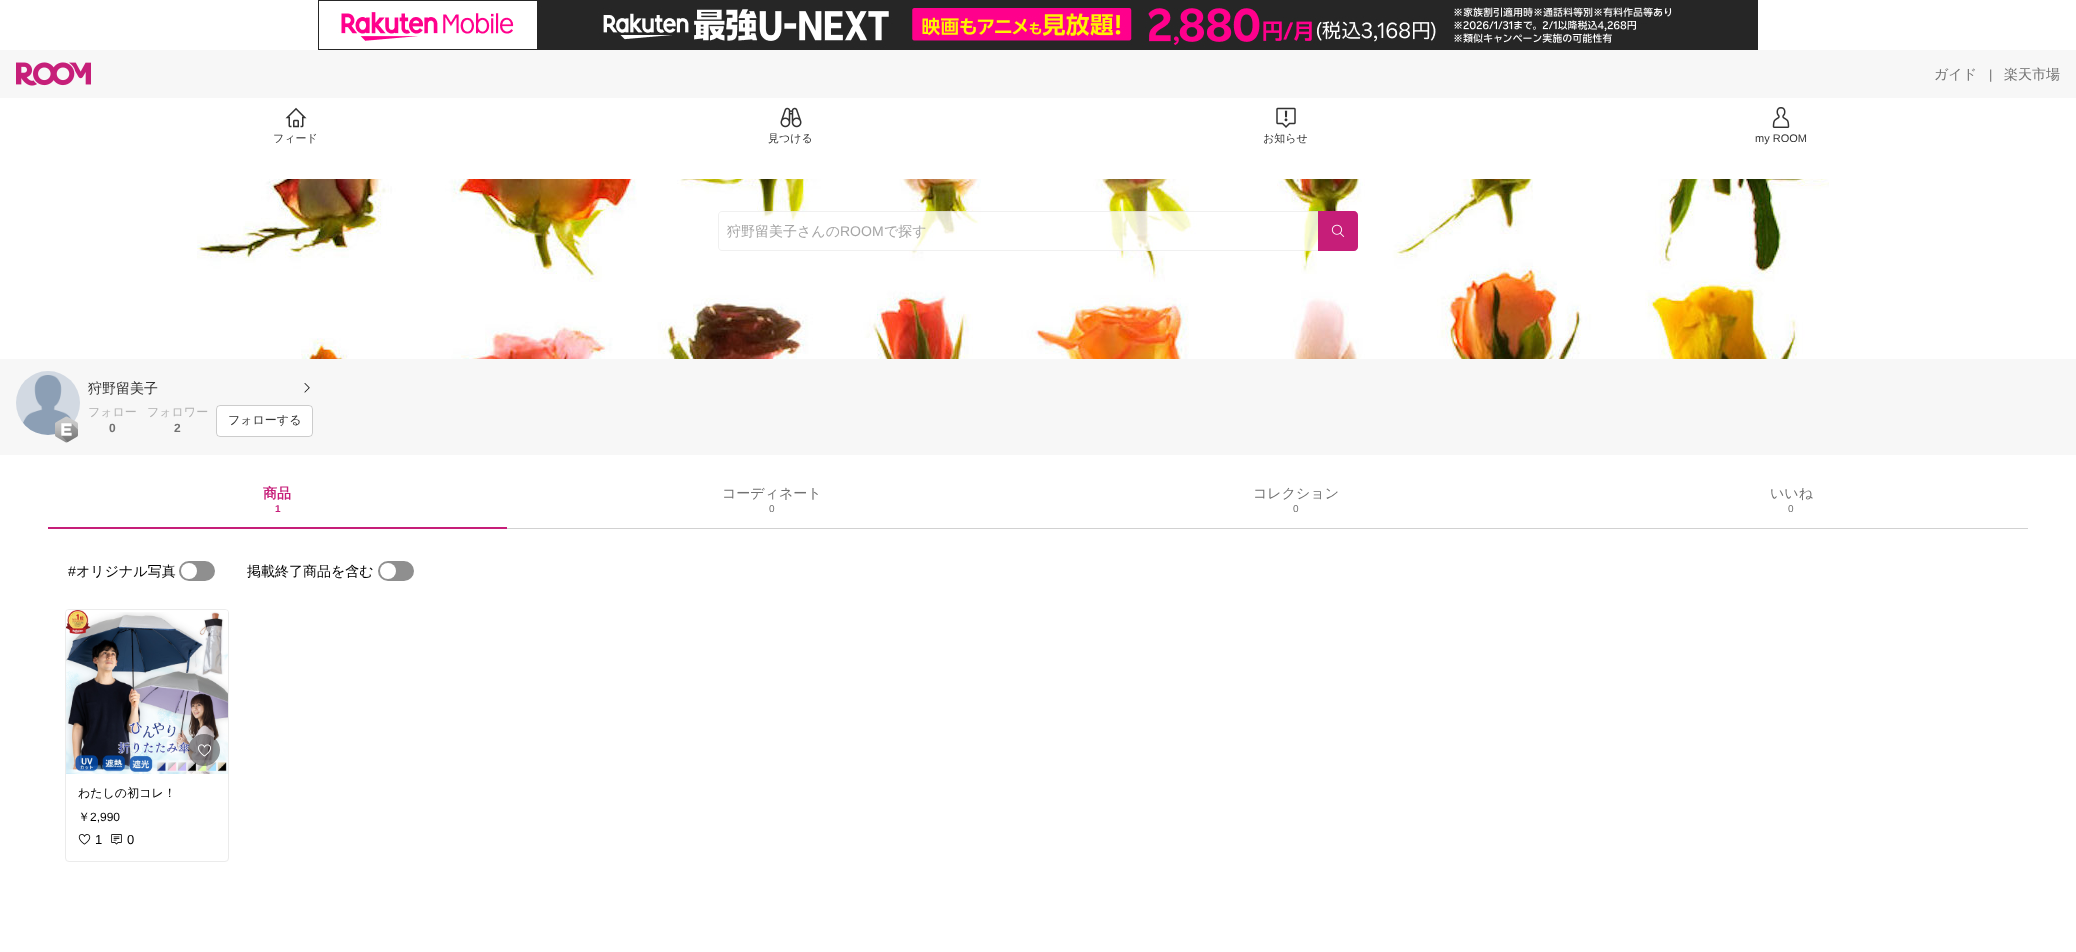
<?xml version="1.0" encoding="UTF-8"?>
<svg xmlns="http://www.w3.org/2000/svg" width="2076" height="952">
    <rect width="100%" height="100%" fill="#FFFFFF"/>
    <image x="318" y="0" width="1440" height="50" href="img_01.png"/>
    <rect x="0" y="50" width="2076" height="48" fill="#F7F7F7"/>
    <image x="16" y="62" width="75" height="24" href="img_02.png"/>
    <text x="1934" y="79" font-family="WenQuanYi Zen Hei" font-size="14" font-weight="500" fill="#717171">ガイド</text>
    <text x="1989" y="79" font-family="Liberation Sans" font-size="13" fill="#717171">|</text>
    <text x="2004" y="79" font-family="WenQuanYi Zen Hei" font-size="14" font-weight="500" fill="#717171">楽天市場</text>
    <image x="285" y="107" width="22" height="21" href="img_03.png"/>
    <text x="273" y="142" font-family="WenQuanYi Zen Hei" font-size="11" font-weight="500" fill="#333333">フィード</text>
    <image x="780" y="107" width="22" height="21" href="img_04.png"/>
    <text x="768" y="142" font-family="WenQuanYi Zen Hei" font-size="11" font-weight="500" fill="#333333">見つける</text>
    <image x="1276" y="107" width="20" height="21" href="img_05.png"/>
    <text x="1263" y="142" font-family="WenQuanYi Zen Hei" font-size="11" font-weight="500" fill="#333333">お知らせ</text>
    <image x="1772" y="107" width="18" height="21" href="img_06.png"/>
    <text x="1755" y="142" font-family="Liberation Sans" font-size="11" fill="#333333">my ROOM</text>
    <image x="197" y="179" width="1632" height="180" href="img_07.png"/>
    <path d="M 722 211 H 1318 V 251 H 722 C 720 251 718 249 718 247 V 215 C 718 213 720 211 722 211 Z" fill="#FFFFFF" fill-opacity="0.8"/>
    <path d="M 722 211 H 1318 V 251 H 722 C 720 251 718 249 718 247 V 215 C 718 213 720 211 722 211 Z M 722 212 H 1318 V 250 H 722 C 720 250 719 249 719 247 V 215 C 719 213 720 212 722 212 Z" fill="#000000" fill-opacity="0.06" fill-rule="evenodd"/>
    <text x="727" y="236" font-family="WenQuanYi Zen Hei" font-size="14" font-weight="500" fill="#A5A5A5">狩野留美子さんの</text>
    <text x="840" y="236" font-family="Liberation Sans" font-size="14" fill="#A5A5A5">ROOM</text>
    <text x="884" y="236" font-family="WenQuanYi Zen Hei" font-size="14" font-weight="500" fill="#A5A5A5">で探す</text>
    <path d="M 1318 211 H 1354 C 1356 211 1358 213 1358 215 V 247 C 1358 249 1356 251 1354 251 H 1318 Z" fill="#C61E79"/>
    <image x="1331" y="224" width="14" height="13" href="img_08.png"/>
    <rect x="0" y="359" width="2076" height="96" fill="#F7F7F7"/>
    <image x="16" y="371" width="64" height="64" href="img_09.png"/>
    <image x="55" y="416" width="23" height="27" href="img_10.png"/>
    <text x="88" y="393" font-family="WenQuanYi Zen Hei" font-size="14" font-weight="500" fill="#333333">狩野留美子</text>
    <image x="304" y="383" width="6" height="10" href="img_11.png"/>
    <text x="88" y="416" font-family="WenQuanYi Zen Hei" font-size="12" font-weight="500" fill="#B2B2B2">フォロー</text>
    <text x="109" y="432" font-family="Liberation Sans" font-size="12" font-weight="700" fill="#717171">0</text>
    <text x="147" y="416" font-family="WenQuanYi Zen Hei" font-size="12" font-weight="500" fill="#B2B2B2">フォロワー</text>
    <text x="174" y="432" font-family="Liberation Sans" font-size="12" font-weight="700" fill="#717171">2</text>
    <rect x="216" y="405" width="97" height="32" rx="4" fill="#FFFFFF"/>
    <rect x="216.5" y="405.5" width="96" height="31" rx="3.5" fill="none" stroke="#000000" stroke-opacity="0.2"/>
    <text x="228" y="424" font-family="WenQuanYi Zen Hei" font-size="12" font-weight="500" fill="#333333">フォローする</text>
    <rect x="48" y="527" width="459" height="2" fill="#C61E79"/>
    <text x="263" y="498" font-family="WenQuanYi Zen Hei" font-size="14" font-weight="700" fill="#C61E79">商品</text>
    <text x="275" y="512" font-family="Liberation Sans" font-size="10" font-weight="700" fill="#C61E79">1</text>
    <rect x="507" y="528" width="1521" height="1" fill="#D1D1D1"/>
    <text x="722" y="498" font-family="WenQuanYi Zen Hei" font-size="14" font-weight="500" fill="#717171">コーディネート</text>
    <text x="769" y="512" font-family="Liberation Sans" font-size="10" fill="#717171">0</text>
    <text x="1253" y="498" font-family="WenQuanYi Zen Hei" font-size="14" font-weight="500" fill="#717171">コレクション</text>
    <text x="1293" y="512" font-family="Liberation Sans" font-size="10" fill="#717171">0</text>
    <text x="1770" y="498" font-family="WenQuanYi Zen Hei" font-size="14" font-weight="500" fill="#717171">いいね</text>
    <text x="1788" y="512" font-family="Liberation Sans" font-size="10" fill="#717171">0</text>
    <text x="68" y="576" font-family="Liberation Sans" font-size="14" fill="#000000">#</text>
    <text x="76" y="576" font-family="WenQuanYi Zen Hei" font-size="14" font-weight="500" fill="#000000">オリジナル写真</text>
    <rect x="180" y="562" width="34" height="18" rx="9" fill="#8F8F8F" stroke="#8F8F8F" stroke-width="2"/>
    <circle cx="189" cy="571" r="8" fill="#FFFFFF"/>
    <text x="247" y="576" font-family="WenQuanYi Zen Hei" font-size="14" font-weight="500" fill="#000000">掲載終了商品を含む</text>
    <rect x="379" y="562" width="34" height="18" rx="9" fill="#8F8F8F" stroke="#8F8F8F" stroke-width="2"/>
    <circle cx="388" cy="571" r="8" fill="#FFFFFF"/>
    <rect x="65.5" y="609.5" width="163" height="252" rx="3.5" fill="none" stroke="#EBEBEB"/>
    <image x="66" y="610" width="162" height="164" href="img_12.png"/>
    <circle cx="204" cy="750" r="16" fill="#000000" fill-opacity="0.4"/>
    <image x="198" y="744" width="13" height="13" href="img_13.png"/>
    <text x="78" y="797" font-family="WenQuanYi Zen Hei" font-size="12" font-weight="500" fill="#000000">わたしの初コレ！</text>
    <text x="78" y="821" font-family="WenQuanYi Zen Hei" font-size="12" font-weight="500" fill="#000000">￥</text>
    <text x="90" y="821" font-family="Liberation Sans" font-size="12" fill="#000000">2,990</text>
    <image x="78" y="834" width="13" height="11" href="img_14.png"/>
    <text x="95" y="844" font-family="Liberation Sans" font-size="13" fill="#000000">1</text>
    <image x="111" y="834" width="11" height="11" href="img_15.png"/>
    <text x="127" y="844" font-family="Liberation Sans" font-size="13" fill="#000000">0</text>
</svg>
